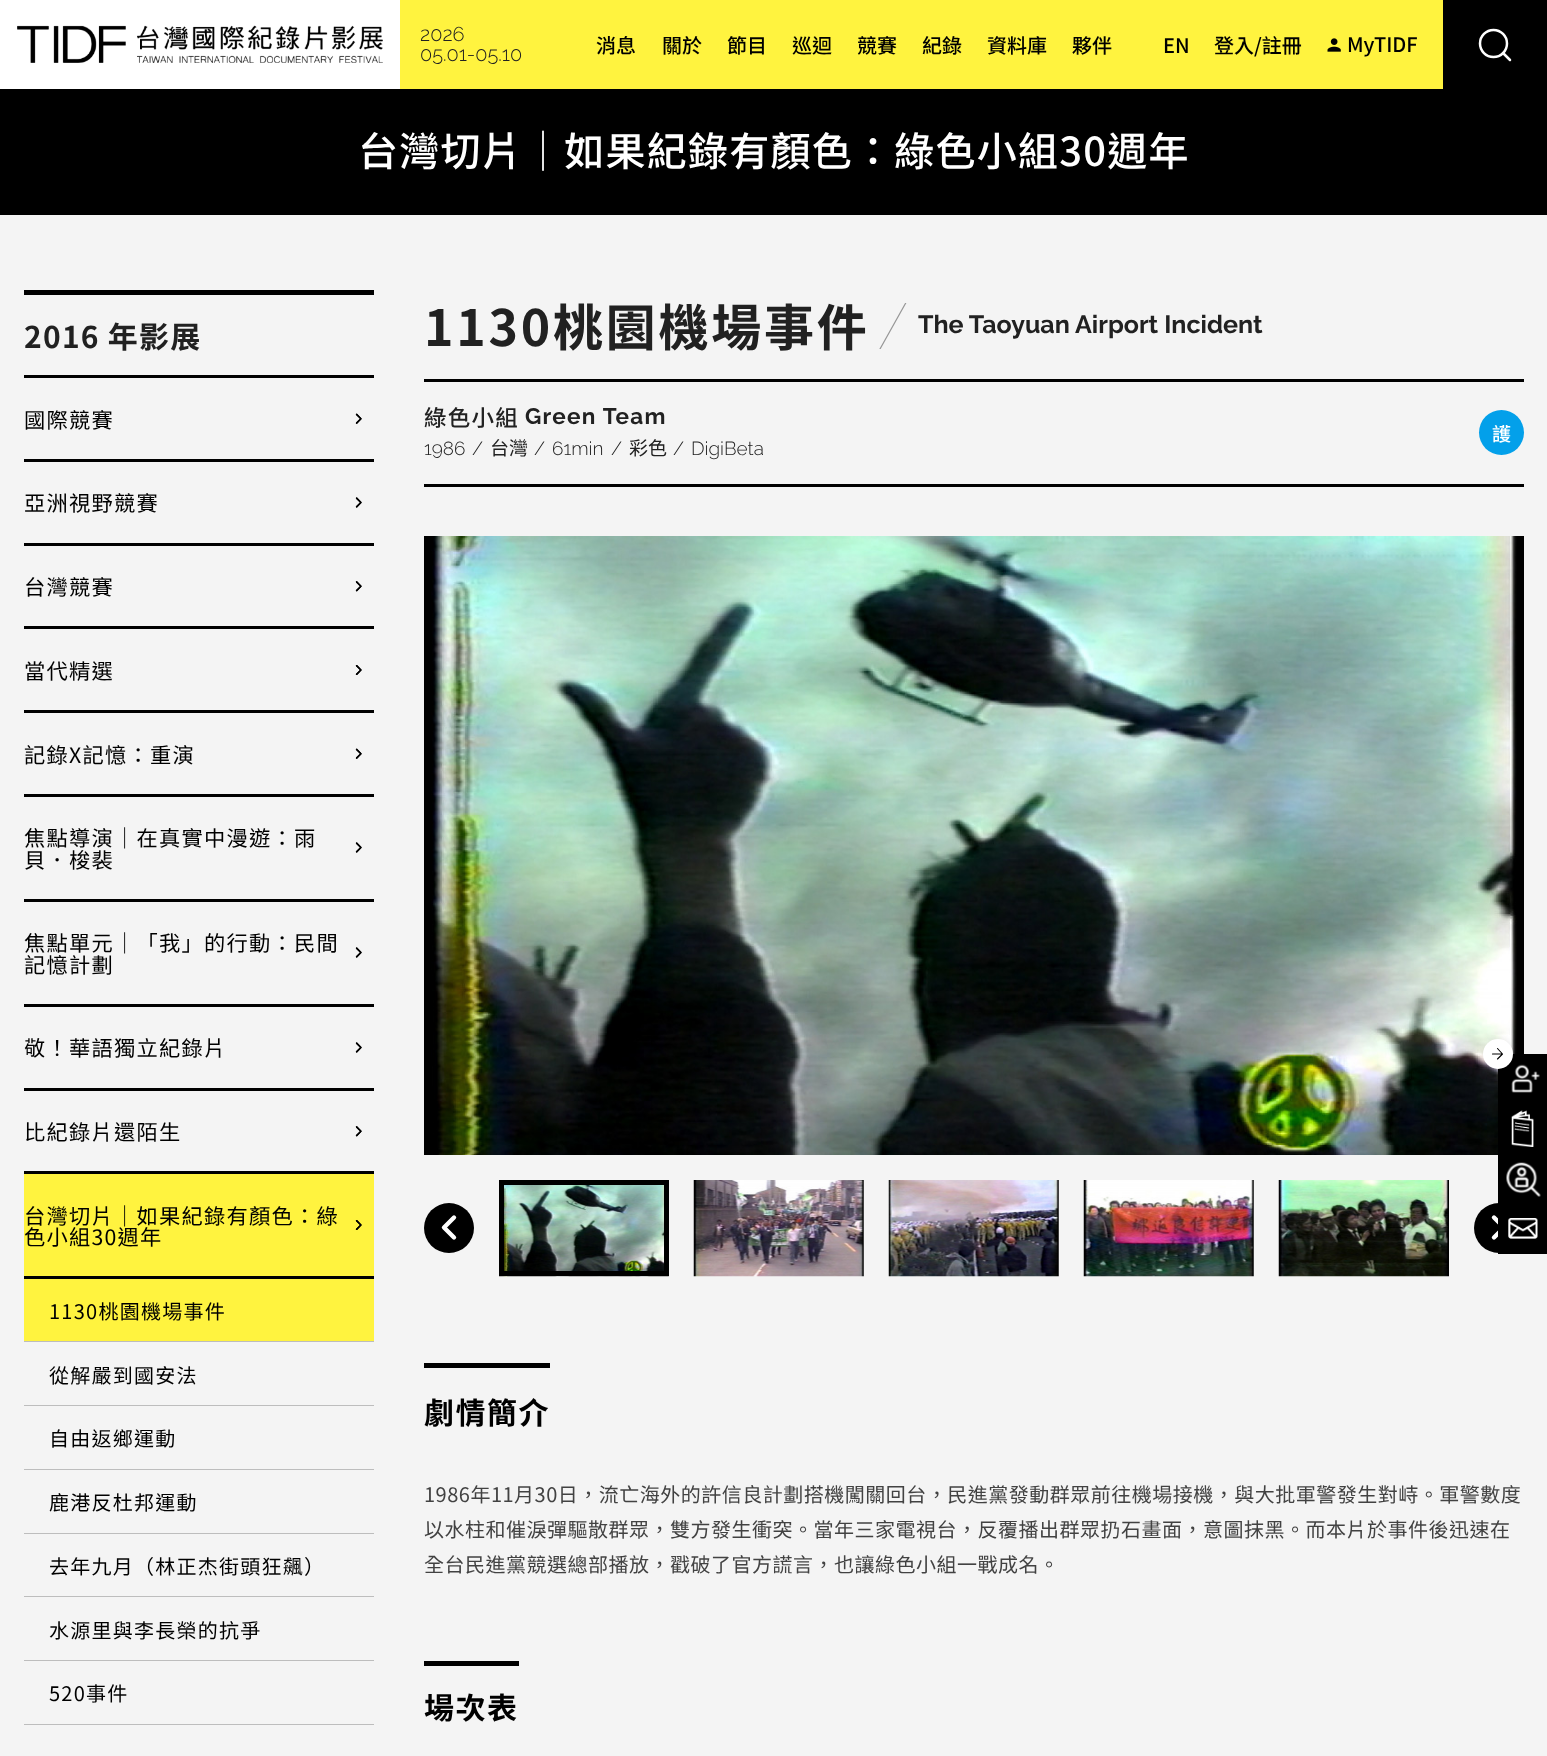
<?xml version="1.0" encoding="UTF-8"?>
<svg xmlns="http://www.w3.org/2000/svg" width="1547" height="1756">
    <defs>
        <filter id="blur1" x="-50%" y="-200%" width="200%" height="500%"><feGaussianBlur stdDeviation="2.5"/></filter>
        <clipPath id="clip1"><rect x="879" y="303" width="29" height="46"/></clipPath>
        <filter id="blur2" x="-50%" y="-200%" width="200%" height="500%"><feGaussianBlur stdDeviation="3"/></filter>
    </defs>
    <rect width="100%" height="100%" fill="#F4F4F4"/>
    <rect x="0" y="89" width="1547" height="126" fill="#000000"/>
    <rect x="0" y="3" width="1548" height="88" fill="#000000" fill-opacity="0.25" filter="url(#blur1)"/>
    <rect x="400" y="0" width="1043" height="89" fill="#FFF33F"/>
    <rect x="0" y="0" width="400" height="89" fill="#FFFFFF"/>
    <image x="17" y="25" width="366" height="38" href="img_01.png"/>
    <text font-family="Raleway" font-size="20" font-weight="300" fill="#212121">
        <tspan x="420" y="41">2026</tspan>
        <tspan x="420" y="61">05.01-05.10</tspan>
    </text>
    <text x="596" y="53" font-family="Noto Sans TC" font-size="20" font-weight="500" fill="#000000">消息</text>
    <text x="662" y="53" font-family="Noto Sans TC" font-size="20" font-weight="500" fill="#000000">關於</text>
    <text x="727" y="53" font-family="Noto Sans TC" font-size="20" font-weight="500" fill="#000000">節目</text>
    <text x="792" y="53" font-family="Noto Sans TC" font-size="20" font-weight="500" fill="#000000">巡迴</text>
    <text x="857" y="53" font-family="Noto Sans TC" font-size="20" font-weight="500" fill="#000000">競賽</text>
    <text x="922" y="53" font-family="Noto Sans TC" font-size="20" font-weight="500" fill="#000000">紀錄</text>
    <text x="987" y="53" font-family="Noto Sans TC" font-size="20" font-weight="500" fill="#000000">資料庫</text>
    <text x="1072" y="53" font-family="Noto Sans TC" font-size="20" font-weight="500" fill="#000000">夥伴</text>
    <text x="1163" y="53" font-family="Noto Sans TC" font-size="20" font-weight="500" fill="#000000">EN</text>
    <text x="1214" y="53" font-family="Noto Sans TC" font-size="20" font-weight="500" fill="#000000">登入/註冊</text>
    <image x="1327" y="38" width="14" height="14" href="img_02.png"/>
    <text x="1347" y="52" font-family="Noto Sans TC" font-size="20" font-weight="500" fill="#000000">MyTIDF</text>
    <rect x="1443" y="0" width="104" height="89" fill="#000000"/>
    <circle cx="1493.5" cy="43.5" r="13.5" fill="none" stroke="#FFFFFF" stroke-width="2.5"/>
    <path d="M 1510 60 L 1503 53" fill="none" stroke="#FFFFFF" stroke-width="2.5" stroke-linecap="round" stroke-linejoin="round"/>
    <text x="358" y="166" font-family="Noto Sans TC" font-size="40" font-weight="500" letter-spacing="1.25" fill="#FFFFFF">台灣切片｜如果紀錄有顏色：綠色小組30週年</text>
    <rect x="24" y="290" width="350" height="5" fill="#000000"/>
    <text x="24" y="348" font-family="Noto Sans TC" font-size="30" font-weight="700" letter-spacing="1.25" fill="#212121">2016 年影展</text>
    <rect x="24" y="375" width="350" height="3" fill="#000000"/>
    <rect x="24" y="459" width="350" height="3" fill="#000000"/>
    <text x="24" y="428" font-family="Noto Sans TC" font-size="21.25" letter-spacing="1.25" fill="#000000">國際競賽</text>
    <image x="355" y="413" width="7" height="11" href="img_03.png"/>
    <rect x="24" y="543" width="350" height="3" fill="#000000"/>
    <text x="24" y="511" font-family="Noto Sans TC" font-size="21.25" letter-spacing="1.25" fill="#000000">亞洲視野競賽</text>
    <image x="355" y="497" width="7" height="11" href="img_04.png"/>
    <rect x="24" y="626" width="350" height="3" fill="#000000"/>
    <text x="24" y="595" font-family="Noto Sans TC" font-size="21.25" letter-spacing="1.25" fill="#000000">台灣競賽</text>
    <image x="355" y="581" width="7" height="11" href="img_05.png"/>
    <rect x="24" y="710" width="350" height="3" fill="#000000"/>
    <text x="24" y="679" font-family="Noto Sans TC" font-size="21.25" letter-spacing="1.25" fill="#000000">當代精選</text>
    <image x="355" y="665" width="7" height="10" href="img_06.png"/>
    <rect x="24" y="794" width="350" height="3" fill="#000000"/>
    <text x="24" y="763" font-family="Noto Sans TC" font-size="21.25" letter-spacing="1.25" fill="#000000">記錄X記憶：重演</text>
    <image x="355" y="748" width="7" height="11" href="img_03.png"/>
    <rect x="24" y="899" width="350" height="3" fill="#000000"/>
    <text x="24" y="846" font-family="Noto Sans TC" font-size="21.25" letter-spacing="1.25" fill="#000000">焦點導演｜在真實中漫遊：雨</text>
    <image x="355" y="842" width="7" height="11" href="img_04.png"/>
    <text x="24" y="868" font-family="Noto Sans TC" font-size="21.25" letter-spacing="1.25" fill="#000000">貝．梭裴</text>
    <rect x="24" y="1004" width="350" height="3" fill="#000000"/>
    <text x="24" y="951" font-family="Noto Sans TC" font-size="21.25" letter-spacing="1.25" fill="#000000">焦點單元｜「我」的行動：民間</text>
    <image x="355" y="947" width="7" height="11" href="img_04.png"/>
    <text x="24" y="973" font-family="Noto Sans TC" font-size="21.25" letter-spacing="1.25" fill="#000000">記憶計劃</text>
    <rect x="24" y="1088" width="350" height="3" fill="#000000"/>
    <text x="24" y="1056" font-family="Noto Sans TC" font-size="21.25" letter-spacing="1.25" fill="#000000">敬！華語獨立紀錄片</text>
    <image x="355" y="1042" width="7" height="11" href="img_04.png"/>
    <rect x="24" y="1171" width="350" height="3" fill="#000000"/>
    <text x="24" y="1140" font-family="Noto Sans TC" font-size="21.25" letter-spacing="1.25" fill="#000000">比紀錄片還陌生</text>
    <image x="355" y="1126" width="7" height="11" href="img_05.png"/>
    <rect x="24" y="1174" width="350" height="102" fill="#FFF33F"/>
    <text x="24" y="1224" font-family="Noto Sans TC" font-size="21.25" letter-spacing="1.25" fill="#000000">台灣切片｜如果紀錄有顏色：綠</text>
    <image x="355" y="1220" width="7" height="10" href="img_07.png"/>
    <text x="24" y="1245" font-family="Noto Sans TC" font-size="21.25" letter-spacing="1.25" fill="#000000">色小組30週年</text>
    <rect x="24" y="1276" width="350" height="3" fill="#000000"/>
    <rect x="24" y="1341" width="350" height="1" fill="#BDBDBD"/>
    <rect x="24" y="1279" width="350" height="62" fill="#FFF33F"/>
    <text x="49" y="1319" font-family="Noto Sans TC" font-size="20" letter-spacing="1.25" fill="#000000">1130桃園機場事件</text>
    <rect x="24" y="1405" width="350" height="1" fill="#BDBDBD"/>
    <text x="49" y="1383" font-family="Noto Sans TC" font-size="20" letter-spacing="1.25" fill="#000000">從解嚴到國安法</text>
    <rect x="24" y="1469" width="350" height="1" fill="#BDBDBD"/>
    <text x="49" y="1446" font-family="Noto Sans TC" font-size="20" letter-spacing="1.25" fill="#000000">自由返鄉運動</text>
    <rect x="24" y="1533" width="350" height="1" fill="#BDBDBD"/>
    <text x="49" y="1510" font-family="Noto Sans TC" font-size="20" letter-spacing="1.25" fill="#000000">鹿港反杜邦運動</text>
    <rect x="24" y="1596" width="350" height="1" fill="#BDBDBD"/>
    <text x="49" y="1574" font-family="Noto Sans TC" font-size="20" letter-spacing="1.25" fill="#000000">去年九月（林正杰街頭狂飆）</text>
    <rect x="24" y="1660" width="350" height="1" fill="#BDBDBD"/>
    <text x="49" y="1638" font-family="Noto Sans TC" font-size="20" letter-spacing="1.25" fill="#000000">水源里與李長榮的抗爭</text>
    <rect x="24" y="1724" width="350" height="1" fill="#BDBDBD"/>
    <text x="49" y="1701" font-family="Noto Sans TC" font-size="20" letter-spacing="1.25" fill="#000000">520事件</text>
    <rect x="424" y="379" width="1100" height="3" fill="#000000"/>
    <text x="424" y="346" font-family="Noto Sans TC" font-size="50" font-weight="700" letter-spacing="2.75" fill="#212121">1130桃園機場事件</text>
    <g clip-path="url(#clip1)">
        <path d="M 906 302.5 L 880 349" fill="none" stroke="#979797" stroke-width="1.2" stroke-linecap="square"/>
    </g>
    <text x="918" y="333" font-family="Raleway" font-size="25" font-weight="700" fill="#212121">The Taoyuan Airport Incident</text>
    <rect x="424" y="484" width="1100" height="3" fill="#000000"/>
    <text x="424" y="426" font-family="Noto Sans TC" font-size="22.5" font-weight="500" letter-spacing="1.25" fill="#212121">綠色小組</text>
    <text x="525" y="424" font-family="Raleway" font-size="22.5" font-weight="700" letter-spacing="1.25" fill="#212121">Green Team</text>
    <text x="424" y="455" font-family="Raleway" font-size="19" font-weight="300" fill="#212121">1986</text>
    <text x="472" y="455" font-family="Raleway" font-size="19" font-weight="300" fill="#212121">/</text>
    <text x="490" y="455" font-family="Noto Sans TC" font-size="19" fill="#212121">台灣</text>
    <text x="534" y="455" font-family="Raleway" font-size="19" font-weight="300" fill="#212121">/</text>
    <text x="552" y="455" font-family="Raleway" font-size="19" font-weight="300" fill="#212121">61min</text>
    <text x="611" y="455" font-family="Raleway" font-size="19" font-weight="300" fill="#212121">/</text>
    <text x="629" y="455" font-family="Noto Sans TC" font-size="19" fill="#212121">彩色</text>
    <text x="673" y="455" font-family="Raleway" font-size="19" font-weight="300" fill="#212121">/</text>
    <text x="691" y="455" font-family="Raleway" font-size="19" font-weight="300" fill="#212121">DigiBeta</text>
    <circle cx="1501.5" cy="432.5" r="22.5" fill="#03A0EA"/>
    <text x="1492" y="441" font-family="Noto Sans TC" font-size="19" font-weight="500" fill="#FFFFFF">護</text>
    <image x="424" y="536" width="1100" height="619" href="img_08.png"/>
    <image x="499" y="1185" width="170" height="92" href="img_09.png"/>
    <rect x="501.5" y="1182.5" width="165" height="91" fill="none" stroke="#000000" stroke-width="5"/>
    <image x="693" y="1180" width="171" height="97" href="img_10.png"/>
    <image x="888" y="1180" width="171" height="97" href="img_11.png"/>
    <image x="1083" y="1180" width="171" height="97" href="img_12.png"/>
    <image x="1278" y="1180" width="171" height="97" href="img_13.png"/>
    <circle cx="449" cy="1228" r="25" fill="#000000"/>
    <path d="M 454 1237.5 L 444 1227.5 L 454 1217.5" fill="none" stroke="#FFFFFF" stroke-width="4.4" stroke-linecap="round" stroke-linejoin="round"/>
    <circle cx="1499" cy="1228" r="25" fill="#000000"/>
    <path d="M 1494 1237.5 L 1504 1227.5 L 1494 1217.5" fill="none" stroke="#FFFFFF" stroke-width="4.4" stroke-linecap="round" stroke-linejoin="round"/>
    <rect x="1498" y="1054" width="49" height="200" fill="#000000"/>
    <image x="1511" y="1064" width="29" height="29" href="img_14.png"/>
    <rect x="1483" y="1039" width="30" height="30" rx="15" fill="#000000" fill-opacity="0.1" filter="url(#blur2)"/>
    <circle cx="1498" cy="1054" r="15" fill="#FFFFFF"/>
    <path d="M 1492.5 1054 H 1502.5 M 1497.5 1048.5 L 1502.5 1054 L 1497.5 1059" fill="none" stroke="#000000" stroke-width="1.1" stroke-linecap="round" stroke-linejoin="round"/>
    <image x="1511" y="1110" width="23" height="37" href="img_15.png"/>
    <image x="1506" y="1162" width="35" height="35" href="img_16.png"/>
    <image x="1508" y="1218" width="30" height="21" href="img_17.png"/>
    <rect x="424" y="1363" width="126" height="5" fill="#000000"/>
    <text x="424" y="1424" font-family="Noto Sans TC" font-size="30" font-weight="700" letter-spacing="1.5" fill="#000000">劇情簡介</text>
    <text font-family="Noto Sans TC" font-size="20" letter-spacing="0.5" fill="#424242">
        <tspan x="424" y="1502">1986年11月30日，流亡海外的許信良計劃搭機闖關回台，民進黨發動群眾前往機場接機，與大批軍警發生對峙。軍警數度</tspan>
        <tspan x="424" y="1537">以水柱和催淚彈驅散群眾，雙方發生衝突。當年三家電視台，反覆播出群眾扔石畫面，意圖抹黑。而本片於事件後迅速在</tspan>
        <tspan x="424" y="1572">全台民進黨競選總部播放，戳破了官方謊言，也讓綠色小組一戰成名。</tspan>
    </text>
    <rect x="424" y="1661" width="95" height="5" fill="#000000"/>
    <text x="424" y="1719" font-family="Noto Sans TC" font-size="30" font-weight="700" letter-spacing="1.5" fill="#000000">場次表</text>
</svg>
